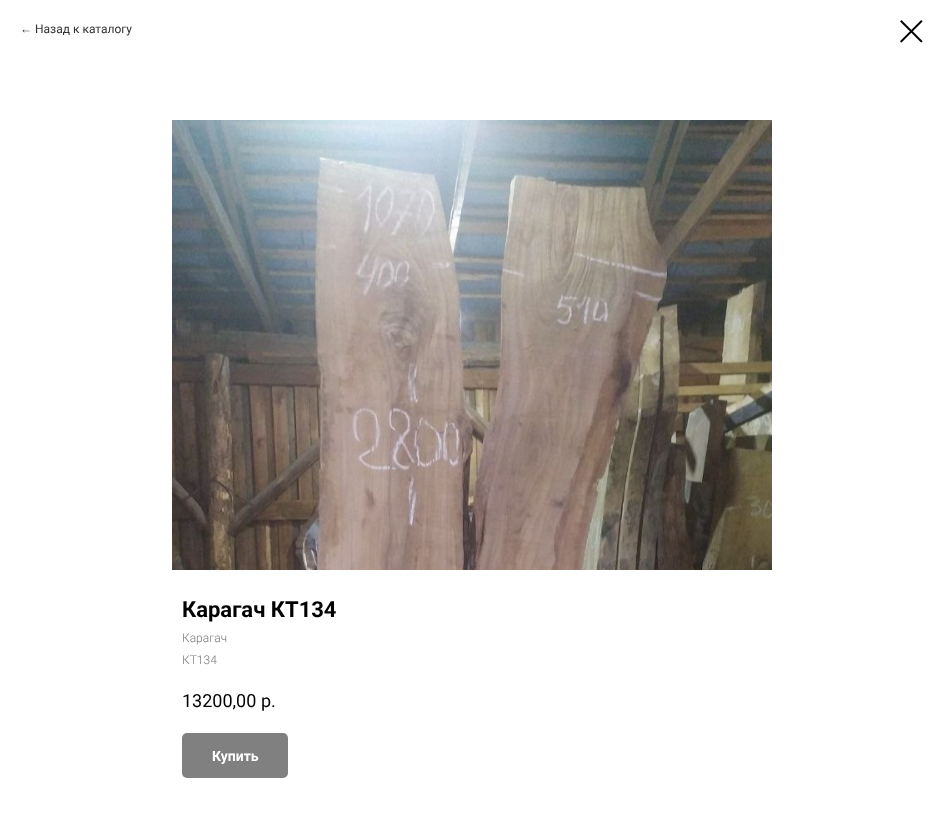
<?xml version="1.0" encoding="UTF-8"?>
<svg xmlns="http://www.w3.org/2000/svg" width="943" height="817">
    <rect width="100%" height="100%" fill="#FFFFFF"/>
    <text x="20" y="33" font-family="Liberation Sans" font-size="12" fill="#333333">←</text>
    <text x="35" y="33" font-family="Roboto" font-size="12" fill="#333333">Назад к каталогу</text>
    <image x="900" y="20" width="23" height="23" href="img_01.png"/>
    <image x="172" y="120" width="600" height="450" href="img_02.png"/>
    <text x="182" y="617" font-family="Roboto" font-size="22" font-weight="700" fill="#000000">Карагач КТ134</text>
    <text font-family="Roboto" font-size="12" font-weight="300" fill="#777777">
        <tspan x="182" y="642">Карагач</tspan>
        <tspan x="182" y="664">КТ134</tspan>
    </text>
    <text x="182" y="707" font-family="Roboto" font-size="18" fill="#000000">13200,00</text>
    <text x="261" y="707" font-family="Roboto" font-size="18" fill="#000000">р.</text>
    <rect x="182" y="733" width="106" height="45" rx="5" fill="#808080"/>
    <text x="212" y="761" font-family="Roboto" font-size="14" font-weight="700" fill="#FFFFFF">Купить</text>
</svg>
